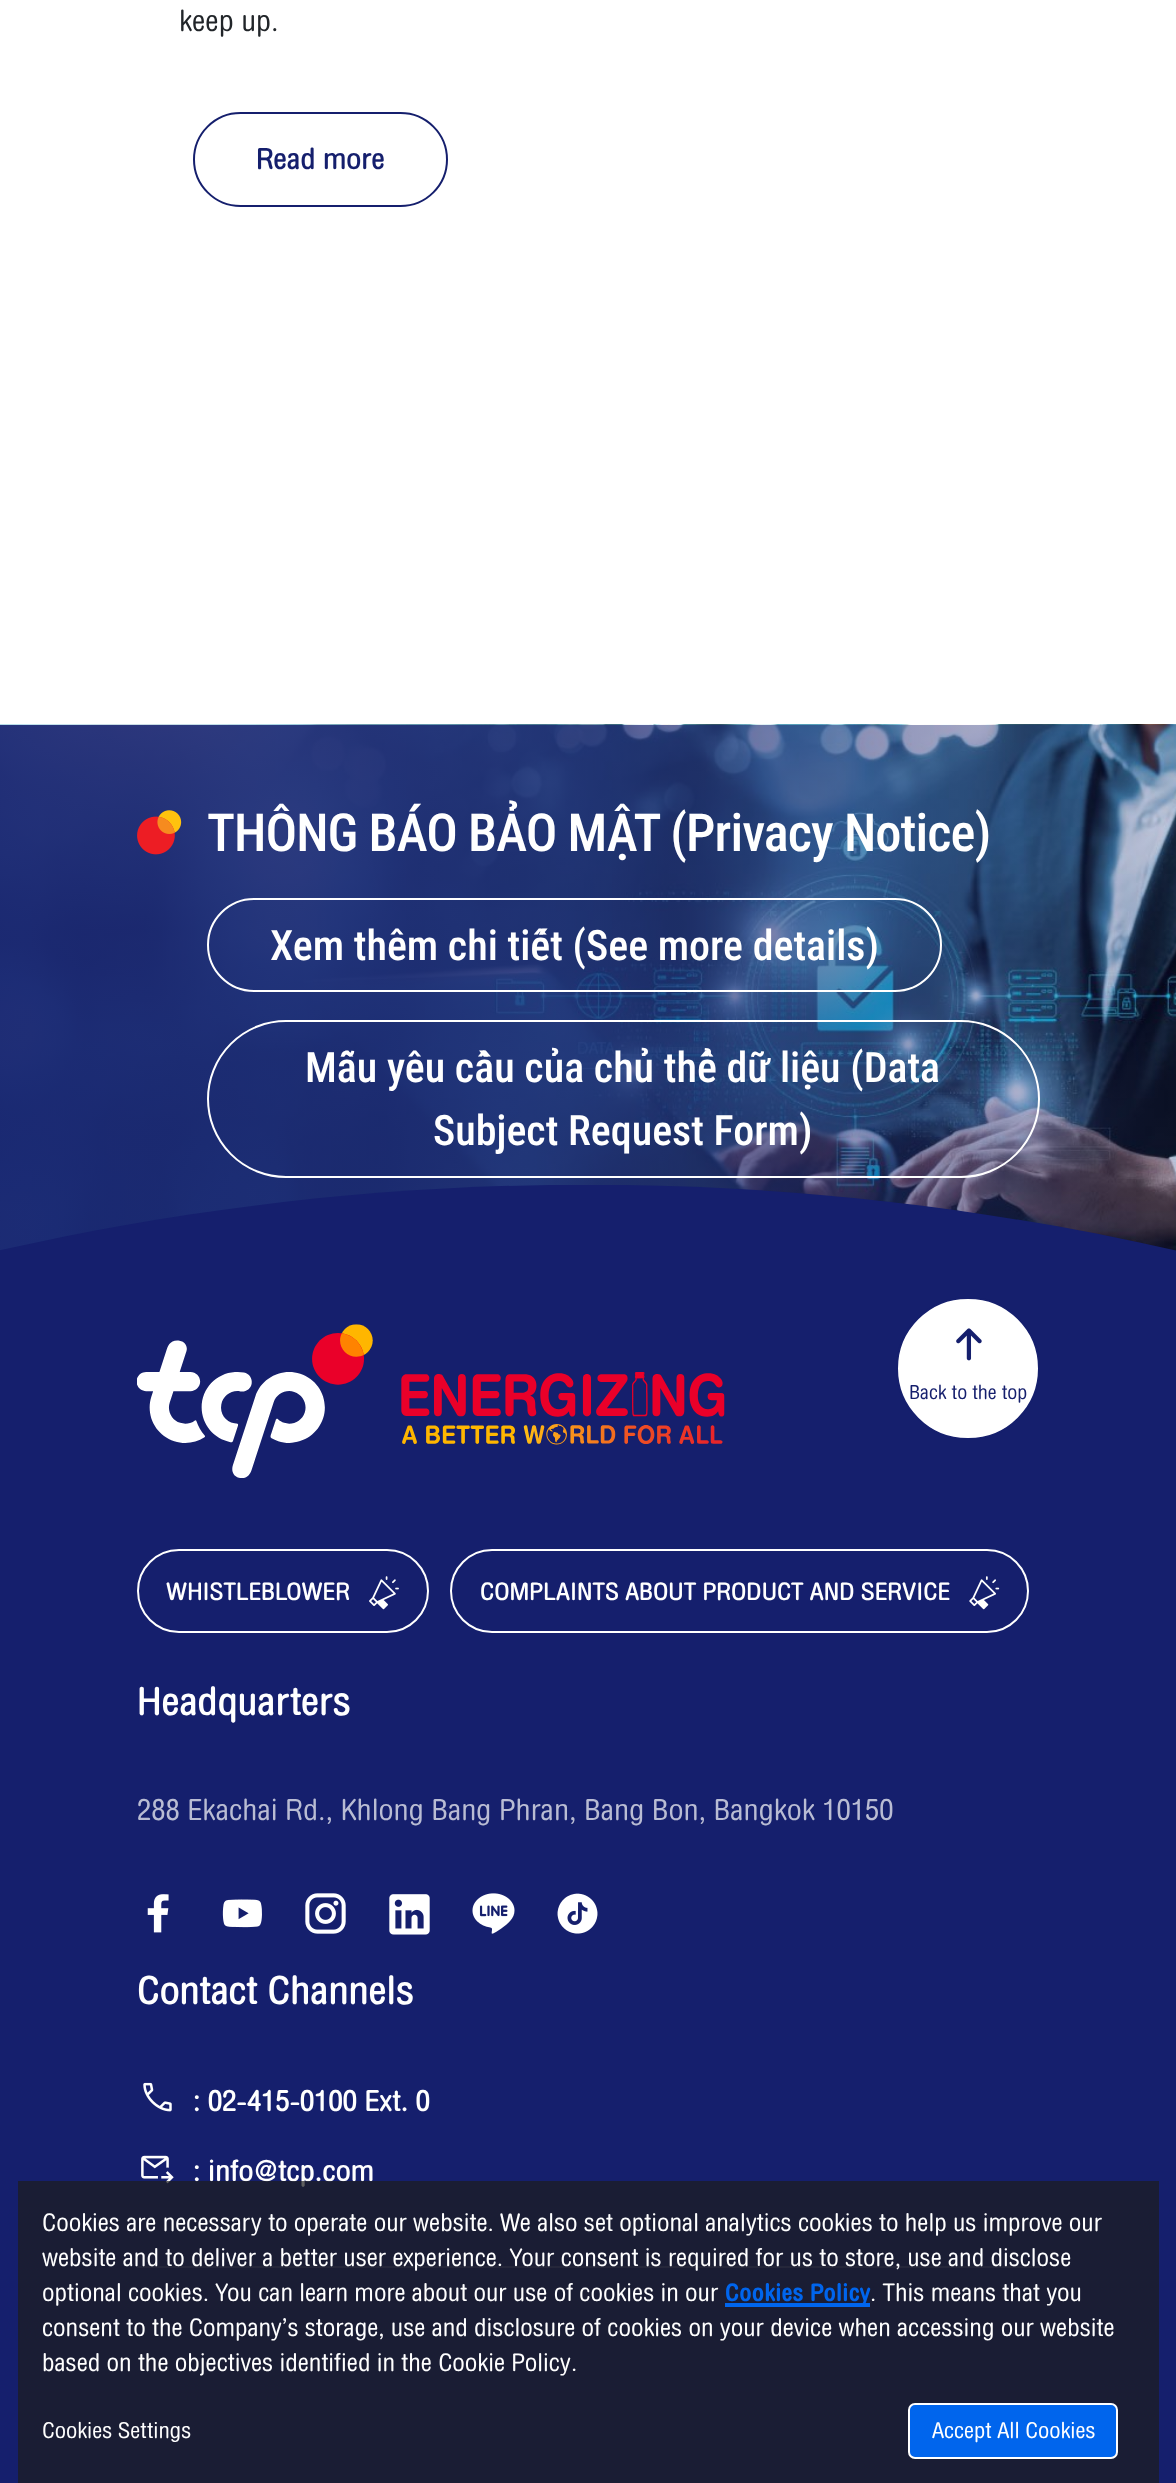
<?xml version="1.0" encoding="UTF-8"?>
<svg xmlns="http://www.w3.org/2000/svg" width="1176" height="2483">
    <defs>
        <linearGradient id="g1" gradientUnits="userSpaceOnUse" x1="0" y1="1049" x2="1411" y2="1049"><stop offset="0" stop-color="#151F6D" stop-opacity="0.9"/><stop offset="0.28" stop-color="#151F6D" stop-opacity="0.83"/><stop offset="0.42" stop-color="#151F6D" stop-opacity="0.73"/><stop offset="1" stop-color="#151F6D" stop-opacity="0"/></linearGradient>
        <clipPath id="clip1"><rect x="0" y="1185" width="1176" height="336"/></clipPath>
    </defs>
    <rect width="100%" height="100%" fill="#FFFFFF"/>
    <text x="179" y="31" font-family="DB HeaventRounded" font-size="42" fill="#212529">keep up.</text>
    <rect x="194" y="113" width="253" height="93" rx="46.5" fill="none" stroke="#151F6D" stroke-width="2"/>
    <text x="256" y="169" font-family="DB HeaventRounded" font-size="42" font-weight="500" fill="#151F6D">Read more</text>
    <image x="0" y="724" width="1176" height="527" href="img_01.png"/>
    <rect x="0" y="725" width="1176" height="526" fill="url(#g1)"/>
    <image x="137" y="810" width="45" height="45" href="img_02.png"/>
    <text x="207" y="851" font-family="Roboto Condensed" font-size="52.5" font-weight="500" letter-spacing="-0.95" fill="#FFFFFF">THÔNG BÁO BẢO MẬT (Privacy Notice)</text>
    <rect x="208" y="899" width="733" height="92" rx="46" fill="none" stroke="#FFFFFF" stroke-width="2"/>
    <text x="270" y="960" font-family="Roboto Condensed" font-size="42" font-weight="500" fill="#FFFFFF">Xem thêm chi tiết (See more details)</text>
    <rect x="208" y="1021" width="831" height="156" rx="78" fill="none" stroke="#FFFFFF" stroke-width="2"/>
    <text x="305" y="1082" font-family="Roboto Condensed" font-size="42" font-weight="500" fill="#FFFFFF">Mẫu yêu cầu của chủ thể dữ liệu (Data</text>
    <text x="433" y="1145" font-family="Roboto Condensed" font-size="42" font-weight="500" fill="#FFFFFF">Subject Request Form)</text>
    <g clip-path="url(#clip1)">
        <path d="M 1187 1253 V 1521 H -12 V 1253 C 381 1162 794 1162 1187 1253 Z" fill="#151F6D" fill-rule="evenodd"/>
    </g>
    <rect x="897" y="1298" width="142" height="141" rx="70.5" fill="#FFFFFF" stroke="#151F6D" stroke-width="2"/>
    <image x="956" y="1328" width="26" height="33" href="img_03.png"/>
    <text x="909" y="1399" font-family="DB HeaventRounded" font-size="28" fill="#151F6D">Back to the top</text>
    <rect x="0" y="1521" width="1176" height="962" fill="#151F6D"/>
    <text x="137" y="1715" font-family="DB HeaventRounded" font-size="56" font-weight="500" fill="#FFFFFF">Headquarters</text>
    <text x="137" y="1820" font-family="DB HeaventRounded" font-size="42" fill="#B9BCD3">288 Ekachai Rd., Khlong Bang Phran, Bang Bon, Bangkok 10150</text>
    <image x="147" y="1894" width="22" height="39" href="img_04.png"/>
    <image x="222" y="1899" width="40" height="29" href="img_05.png"/>
    <image x="305" y="1893" width="41" height="41" href="img_06.png"/>
    <image x="389" y="1894" width="41" height="41" href="img_07.png"/>
    <image x="472" y="1893" width="43" height="41" href="img_08.png"/>
    <image x="557" y="1893" width="41" height="41" href="img_09.png"/>
    <text x="137" y="2004" font-family="DB HeaventRounded" font-size="56" font-weight="500" fill="#FFFFFF">Contact Channels</text>
    <image x="143" y="2082" width="29" height="30" href="img_10.png"/>
    <text x="193" y="2111" font-family="DB HeaventRounded" font-size="42" font-weight="500" fill="#FFFFFF">: 02-415-0100 Ext. 0</text>
    <image x="141" y="2155" width="33" height="29" href="img_11.png"/>
    <text x="193" y="2181" font-family="DB HeaventRounded" font-size="42" font-weight="500" fill="#FFFFFF">: info@tcp.com</text>
    <image x="137" y="1324" width="588" height="154" href="img_12.png"/>
    <rect x="138" y="1550" width="290" height="82" rx="41" fill="none" stroke="#FFFFFF" stroke-width="2"/>
    <text x="166" y="1600" font-family="DB HeaventRounded" font-size="35" font-weight="500" fill="#FFFFFF">WHISTLEBLOWER</text>
    <image x="369" y="1576" width="30" height="34" href="img_13.png"/>
    <rect x="451" y="1550" width="577" height="82" rx="41" fill="none" stroke="#FFFFFF" stroke-width="2"/>
    <text x="480" y="1600" font-family="DB HeaventRounded" font-size="35" font-weight="500" fill="#FFFFFF">COMPLAINTS ABOUT PRODUCT AND SERVICE</text>
    <image x="969" y="1576" width="31" height="34" href="img_14.png"/>
    <rect x="137" y="2266" width="903" height="2" fill="#394181"/>
    <rect x="18" y="2181" width="1141" height="302" fill="#1C1C1C" fill-opacity="0.7"/>
    <text font-family="DB HeaventRounded" font-size="35" fill="#FFFFFF">
        <tspan x="42" y="2231">Cookies are necessary to operate our website. We also set optional analytics cookies to help us improve our</tspan>
        <tspan x="42" y="2266">website and to deliver a better user experience. Your consent is required for us to store, use and disclose</tspan>
        <tspan x="42" y="2301">optional cookies. You can learn more about our use of cookies in our</tspan>
    </text>
    <rect x="725" y="2303" width="145" height="4" fill="#0065ED"/>
    <text x="725" y="2301" font-family="DB HeaventRounded" font-size="35" font-weight="700" fill="#0065ED">Cookies Policy</text>
    <text x="870" y="2301" font-family="DB HeaventRounded" font-size="35" fill="#FFFFFF">. This means that you</text>
    <text font-family="DB HeaventRounded" font-size="35" fill="#FFFFFF">
        <tspan x="42" y="2336">consent to the Company’s storage, use and disclosure of cookies on your device when accessing our website</tspan>
        <tspan x="42" y="2371">based on the objectives identified in the Cookie Policy.</tspan>
    </text>
    <text x="42" y="2438" font-family="DB HeaventRounded" font-size="31.5" fill="#FFFFFF">Cookies Settings</text>
    <rect x="909" y="2404" width="208" height="54" rx="6" fill="#0065ED" stroke="#FFFFFF" stroke-width="2"/>
    <text x="932" y="2438" font-family="DB HeaventRounded" font-size="31.5" fill="#FFFFFF">Accept All Cookies</text>
</svg>
